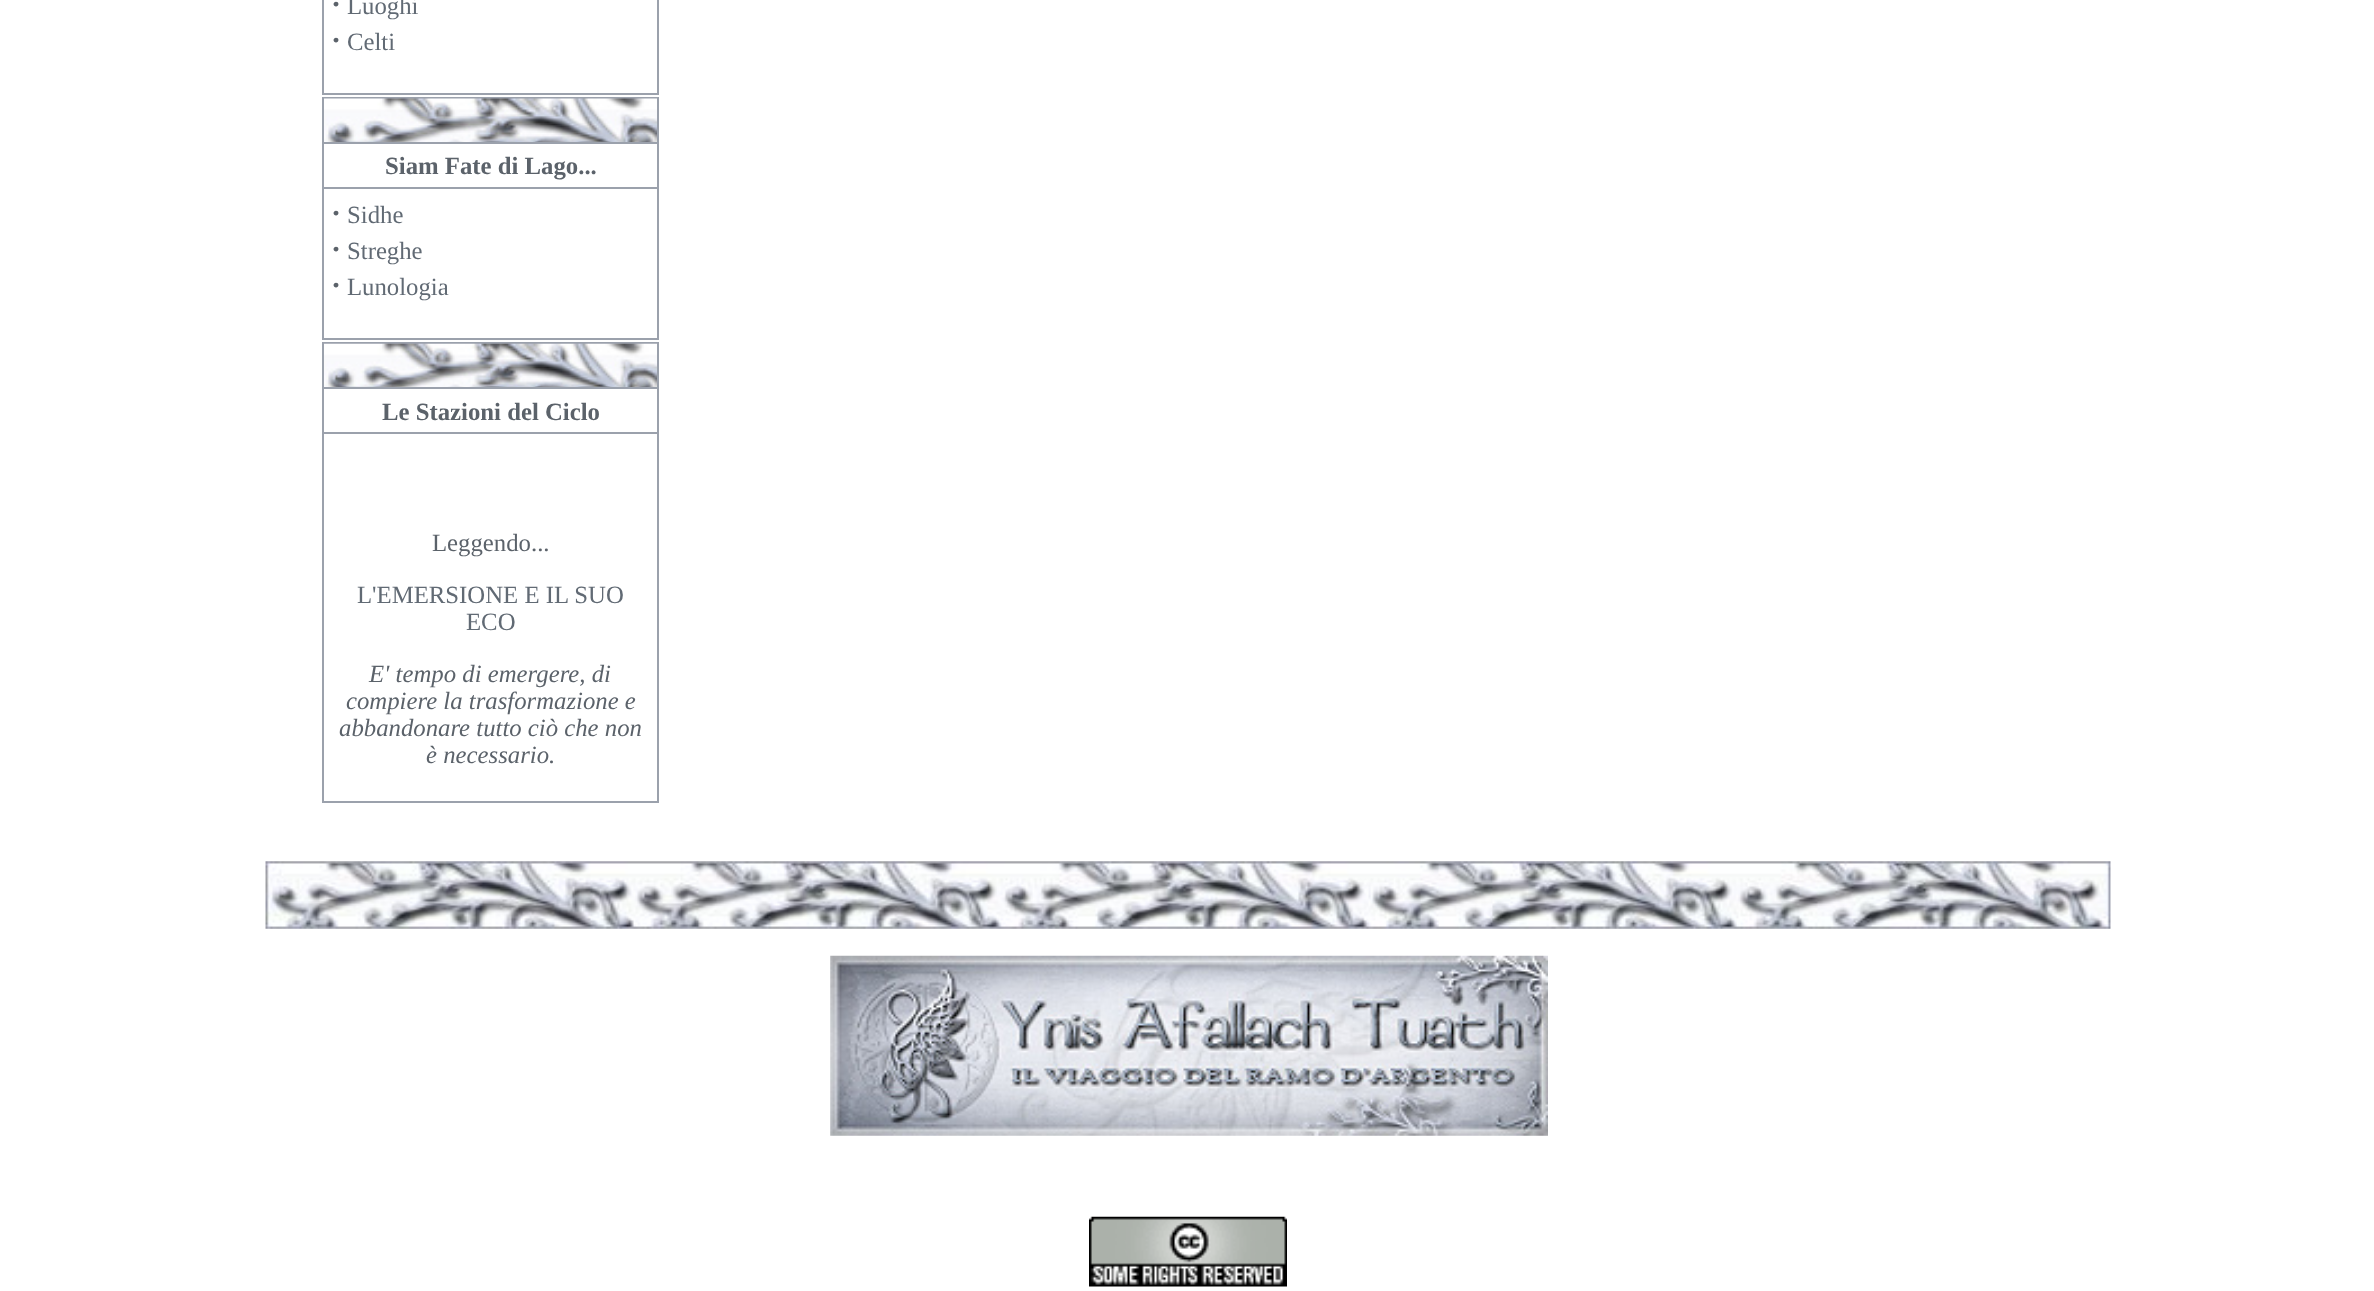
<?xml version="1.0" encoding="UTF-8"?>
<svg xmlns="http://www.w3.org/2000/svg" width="2374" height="1291">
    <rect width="100%" height="100%" fill="#FFFFFF"/>
    <rect x="323" y="-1" width="335" height="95" fill="none" stroke="#9BA1AC" stroke-width="2"/>
    <text x="331" y="14" font-family="Liberation Serif" font-size="30" font-weight="700" fill="#5B626A">·</text>
    <text x="347" y="14" font-family="Liberation Serif" font-size="24.75" fill="#616A74">Luoghi</text>
    <text x="331" y="50" font-family="Liberation Serif" font-size="30" font-weight="700" fill="#5B626A">·</text>
    <text x="347" y="50" font-family="Liberation Serif" font-size="24.75" fill="#616A74">Celti</text>
    <rect x="323" y="98" width="335" height="241" fill="none" stroke="#9BA1AC" stroke-width="2"/>
    <image x="324" y="98" width="333" height="44" href="img_01.png"/>
    <rect x="324" y="142" width="333" height="2" fill="#9BA1AC"/>
    <rect x="324" y="187" width="333" height="2" fill="#9BA1AC"/>
    <text x="385" y="174" font-family="Liberation Serif" font-size="24.75" font-weight="700" fill="#5B626A">Siam Fate di Lago...</text>
    <text x="331" y="223" font-family="Liberation Serif" font-size="30" font-weight="700" fill="#5B626A">·</text>
    <text x="347" y="223" font-family="Liberation Serif" font-size="24.75" fill="#616A74">Sidhe</text>
    <text x="331" y="259" font-family="Liberation Serif" font-size="30" font-weight="700" fill="#5B626A">·</text>
    <text x="347" y="259" font-family="Liberation Serif" font-size="24.75" fill="#616A74">Streghe</text>
    <text x="331" y="295" font-family="Liberation Serif" font-size="30" font-weight="700" fill="#5B626A">·</text>
    <text x="347" y="295" font-family="Liberation Serif" font-size="24.75" fill="#616A74">Lunologia</text>
    <rect x="323" y="343" width="335" height="459" fill="none" stroke="#9BA1AC" stroke-width="2"/>
    <image x="324" y="343" width="333" height="44" href="img_02.png"/>
    <rect x="324" y="387" width="333" height="2" fill="#9BA1AC"/>
    <rect x="324" y="432" width="333" height="2" fill="#9BA1AC"/>
    <text x="382" y="420" font-family="Liberation Serif" font-size="24.75" font-weight="700" fill="#5B626A">Le Stazioni del Ciclo</text>
    <text x="432" y="551" font-family="Liberation Serif" font-size="24.75" fill="#5B626A">Leggendo...</text>
    <text x="357" y="603" font-family="Liberation Serif" font-size="24.75" fill="#616A74">L'EMERSIONE E IL SUO</text>
    <text x="466" y="630" font-family="Liberation Serif" font-size="24.75" fill="#616A74">ECO</text>
    <text x="369" y="682" font-family="Liberation Serif" font-size="24.75" font-style="italic" fill="#5B626A">E' tempo di emergere, di</text>
    <text x="346" y="709" font-family="Liberation Serif" font-size="24.75" font-style="italic" fill="#5B626A">compiere la trasformazione e</text>
    <text x="339" y="736" font-family="Liberation Serif" font-size="24.75" font-style="italic" fill="#5B626A">abbandonare tutto ciò che non</text>
    <text x="426" y="763" font-family="Liberation Serif" font-size="24.75" font-style="italic" fill="#5B626A">è necessario.</text>
    <image x="265" y="861" width="1846" height="68" href="img_03.png"/>
    <image x="830" y="955" width="718" height="181" href="img_04.png"/>
    <image x="1089" y="1216" width="198" height="71" href="img_05.png"/>
</svg>
